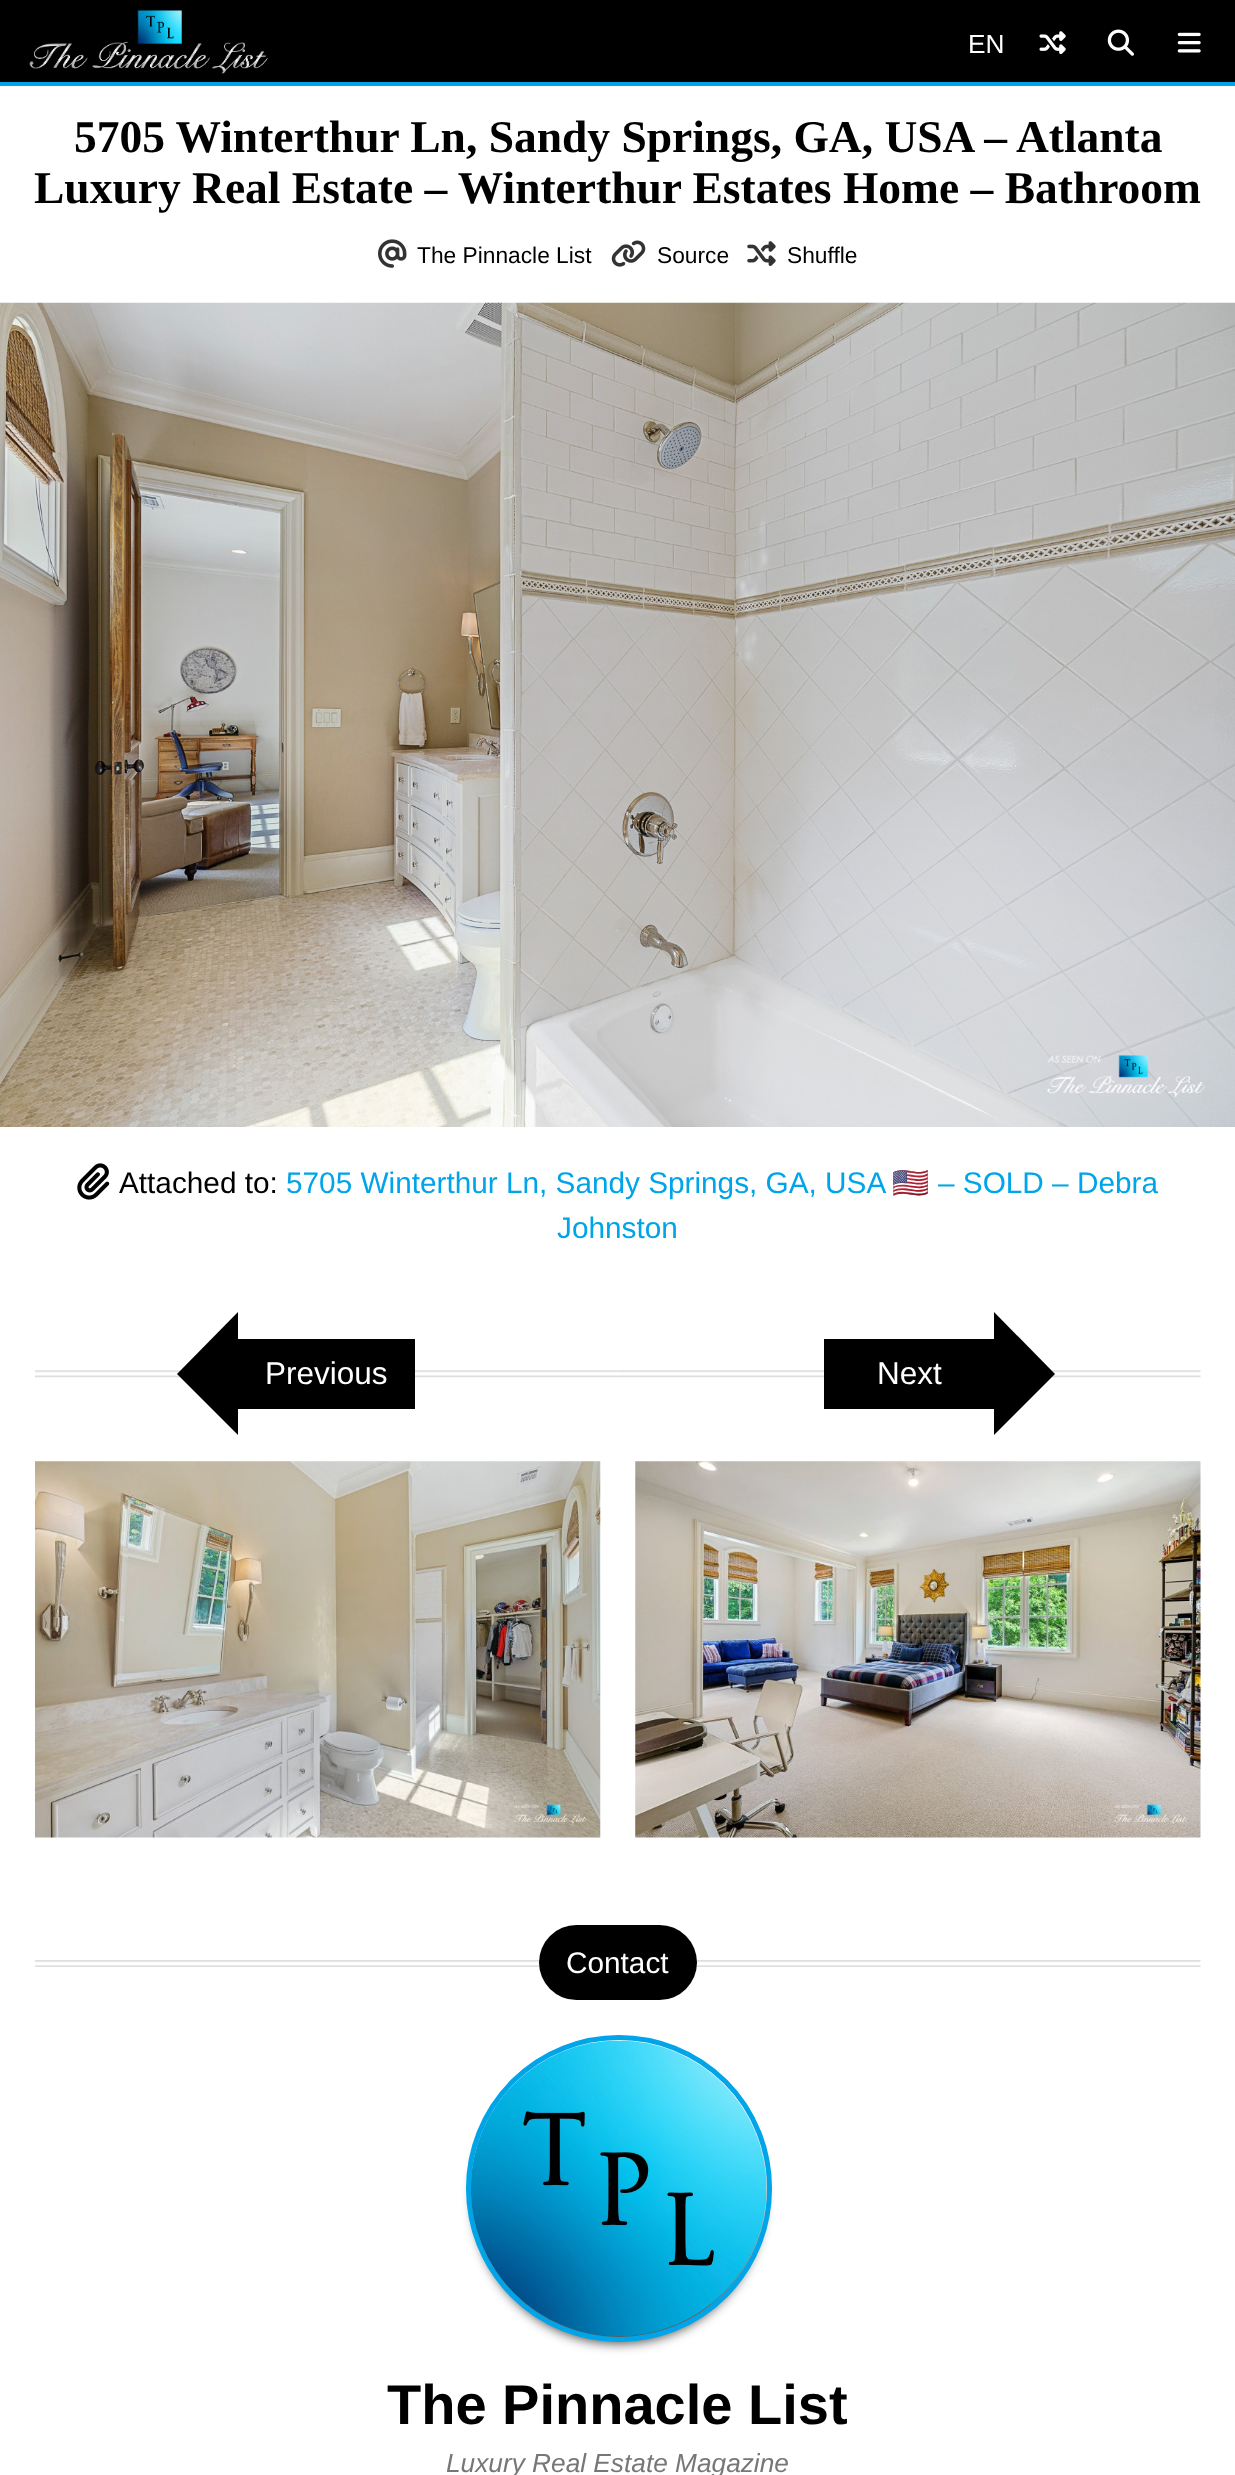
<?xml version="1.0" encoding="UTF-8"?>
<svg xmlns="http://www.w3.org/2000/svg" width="1235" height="2475">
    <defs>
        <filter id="blur1" x="-50%" y="-200%" width="200%" height="500%"><feGaussianBlur stdDeviation="6"/></filter>
    </defs>
    <rect width="100%" height="100%" fill="#000000"/>
    <rect x="0" y="86" width="1235" height="2389" fill="#FFFFFF"/>
    <rect x="0" y="82" width="1235" height="4" fill="#00A4E8"/>
    <image x="29" y="10" width="239" height="64" href="img_01.png"/>
    <text x="968" y="53" font-family="Liberation Sans" font-size="26.25" fill="#FFFFFF">EN</text>
    <image x="1039" y="31" width="27" height="24" href="img_02.png"/>
    <image x="1107" y="29" width="27" height="27" href="img_03.png"/>
    <image x="1177" y="32" width="24" height="21" href="img_04.png"/>
    <text x="74" y="152" font-family="Liberation Serif" font-size="45.5" font-weight="700" fill="#000000">5705 Winterthur Ln, Sandy Springs, GA, USA – Atlanta</text>
    <text x="34" y="203" font-family="Liberation Serif" font-size="45.5" font-weight="700" fill="#000000">Luxury Real Estate – Winterthur Estates Home – Bathroom</text>
    <image x="378" y="239" width="29" height="29" href="img_05.png"/>
    <text x="417" y="263" font-family="Liberation Sans" font-size="22.75" fill="#000000">The Pinnacle List</text>
    <image x="611" y="240" width="35" height="27" href="img_06.png"/>
    <text x="657" y="263" font-family="Liberation Sans" font-size="22.75" fill="#000000">Source</text>
    <image x="747" y="241" width="29" height="25" href="img_07.png"/>
    <text x="787" y="263" font-family="Liberation Sans" font-size="22.75" fill="#000000">Shuffle</text>
    <image x="0" y="302" width="1235" height="825" href="img_08.png"/>
    <image x="77" y="1163" width="33" height="37" href="img_09.png"/>
    <text x="119" y="1193" font-family="Liberation Sans" font-size="29.75" fill="#000000">Attached to:</text>
    <text x="286" y="1193" font-family="Liberation Sans" font-size="29.75" fill="#00A4E8">5705 Winterthur Ln, Sandy Springs, GA, USA</text>
    <text x="892" y="1193" font-family="Noto Color Emoji" font-size="29.75" fill="#00A4E8">🇺🇸</text>
    <text x="938" y="1193" font-family="Liberation Sans" font-size="29.75" fill="#00A4E8">– SOLD – Debra</text>
    <text x="557" y="1238" font-family="Liberation Sans" font-size="29.75" fill="#00A4E8">Johnston</text>
    <image x="35" y="1370" width="583" height="8" href="img_10.png"/>
    <rect x="238" y="1339" width="177" height="70" fill="#000000"/>
    <path d="M 238 1312 V 1435 L 177 1374 Z" fill="#000000"/>
    <text x="265" y="1384" font-family="Liberation Sans" font-size="31.5" fill="#FFFFFF">Previous</text>
    <image x="35" y="1461" width="566" height="377" href="img_11.png"/>
    <image x="618" y="1370" width="583" height="8" href="img_12.png"/>
    <rect x="824" y="1339" width="170" height="70" fill="#000000"/>
    <text x="877" y="1384" font-family="Liberation Sans" font-size="31.5" fill="#FFFFFF">Next</text>
    <path d="M 994 1435 V 1312 L 1055 1374 Z" fill="#000000"/>
    <image x="635" y="1461" width="566" height="377" href="img_13.png"/>
    <image x="35" y="1960" width="1166" height="7" href="img_14.png"/>
    <rect x="539" y="1925" width="158" height="75" rx="37.5" fill="#000000"/>
    <text x="566" y="1973" font-family="Liberation Sans" font-size="29.75" fill="#FFFFFF">Contact</text>
    <rect x="474" y="2055" width="289" height="288" rx="144" fill="#000000" fill-opacity="0.75" filter="url(#blur1)"/>
    <rect x="468.5" y="2037.5" width="301" height="302" rx="150.5" fill="none" stroke="#00A4E8" stroke-width="5"/>
    <image x="471" y="2040" width="296" height="297" href="img_15.png"/>
    <text x="387" y="2424" font-family="Liberation Sans" font-size="56" font-weight="700" fill="#000000">The Pinnacle List</text>
    <text x="446" y="2472" font-family="Liberation Sans" font-size="26.25" font-style="italic" fill="#777777">Luxury Real Estate Magazine</text>
</svg>
